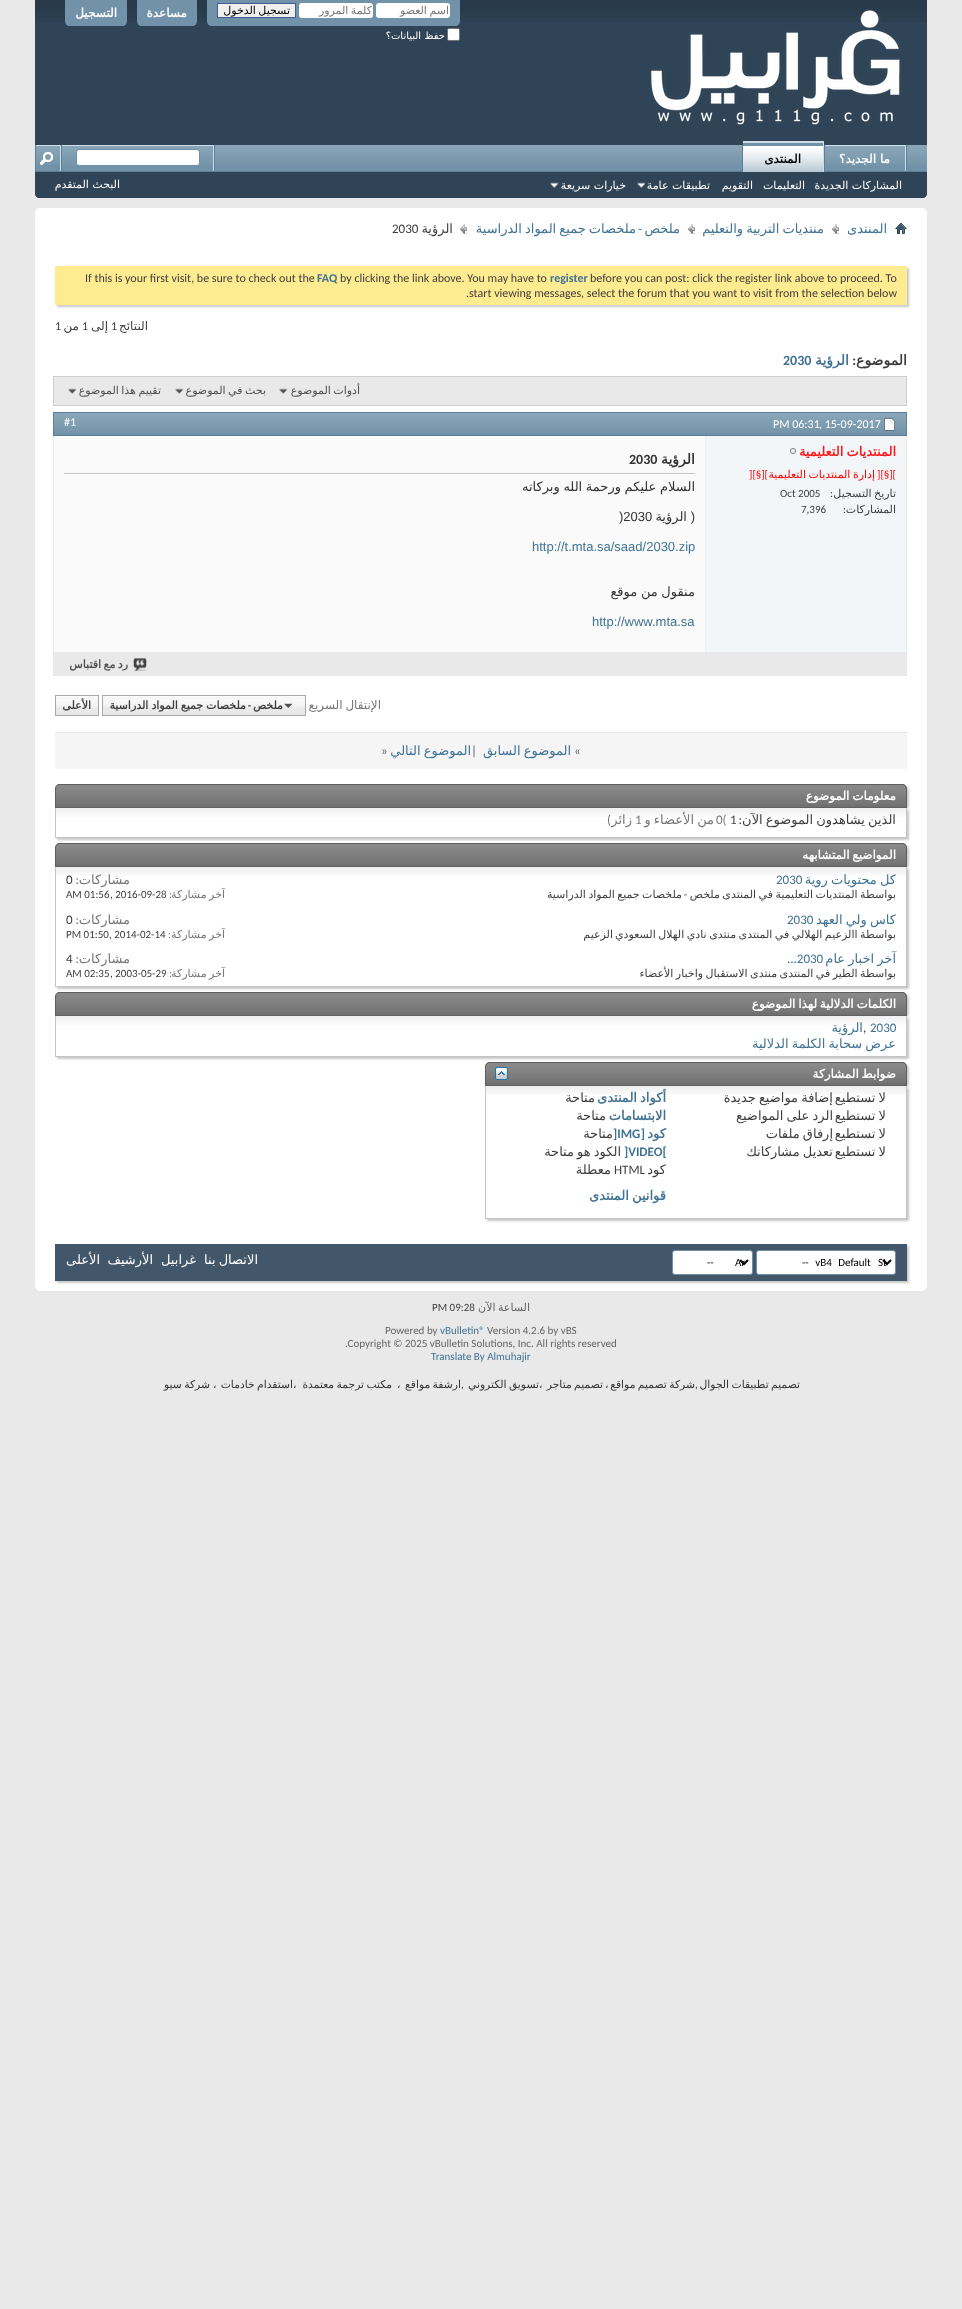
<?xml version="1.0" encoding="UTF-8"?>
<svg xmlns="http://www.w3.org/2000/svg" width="962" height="2309">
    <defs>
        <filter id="blur1" x="-50%" y="-200%" width="200%" height="500%"><feGaussianBlur stdDeviation="1"/></filter>
    </defs>
    <rect width="100%" height="100%" fill="#E9E9E9"/>
    <path d="M 35 0 H 927 V 193 C 927 196 925 198 922 198 H 40 C 37 198 35 196 35 193 Z" fill="#2F4456"/>
    <image x="35" y="0" width="892" height="22" href="img_01.png"/>
    <image x="649" y="8" width="253" height="117" href="img_02.png"/>
    <path d="M 207 0 H 460 V 21 C 460 24 458 26 455 26 H 212 C 209 26 207 24 207 21 Z" fill="#7192A8"/>
    <rect x="376" y="3" width="74" height="15" rx="3" fill="#FFFFFF"/>
    <text x="449" y="14" word-spacing="-1" font-family="DejaVu Sans" font-size="11" direction="rtl" fill="#777777">اسم العضو</text>
    <rect x="299" y="3" width="74" height="15" rx="3" fill="#FFFFFF"/>
    <text x="372" y="14" word-spacing="-1" font-family="DejaVu Sans" font-size="11" direction="rtl" fill="#777777">كلمة المرور</text>
    <rect x="217.5" y="3.5" width="78" height="14" fill="#EFEFEF" stroke="#415D8D"/>
    <text x="290" y="14" word-spacing="-1" font-family="DejaVu Sans" font-size="11" direction="rtl" fill="#000000">تسجيل الدخول</text>
    <rect x="447.5" y="28.5" width="12" height="12" rx="1.5" fill="#FFFFFF" stroke="#767676"/>
    <text x="445" y="39" font-family="DejaVu Sans" font-size="10" direction="rtl" fill="#FFFFFF">حفظ البيانات؟</text>
    <path d="M 137 0 H 197 V 21 C 197 24 195 26 192 26 H 142 C 139 26 137 24 137 21 Z" fill="#7192A8"/>
    <text x="187" y="17" font-family="DejaVu Sans" font-size="12" font-weight="700" direction="rtl" fill="#FFFFFF">مساعدة</text>
    <path d="M 65 0 H 127 V 21 C 127 24 125 26 122 26 H 70 C 67 26 65 24 65 21 Z" fill="#7192A8"/>
    <text x="117" y="17" font-family="DejaVu Sans" font-size="12" font-weight="700" direction="rtl" fill="#FFFFFF">التسجيل</text>
    <path d="M 35 145 H 927 V 193 C 927 196 925 198 922 198 H 40 C 37 198 35 196 35 193 Z" fill="#2F4456"/>
    <rect x="36" y="145" width="891" height="26" fill="#7192A8"/>
    <image x="36" y="145" width="891" height="20" href="img_03.png"/>
    <rect x="906" y="145" width="1" height="27" fill="#5A7F97"/>
    <rect x="824" y="145" width="1" height="27" fill="#5A7F97"/>
    <rect x="825" y="146" width="80" height="19" fill="#7192A8"/>
    <image x="825" y="146" width="80" height="20" href="img_04.png"/>
    <rect x="825" y="145" width="81" height="1" fill="#CEDFEB"/>
    <rect x="905" y="145" width="1" height="27" fill="#CEDFEB"/>
    <text x="890" y="163" font-family="DejaVu Sans" font-size="12" font-weight="700" direction="rtl" fill="#FFFFFF">ما الجديد؟</text>
    <rect x="742" y="145" width="1" height="26" fill="#5A7F97"/>
    <rect x="35" y="171" width="892" height="1" fill="#5A7F97"/>
    <rect x="743" y="142" width="80" height="30" fill="#7192A8"/>
    <image x="743" y="142" width="80" height="30" href="img_05.png"/>
    <rect x="743" y="141" width="81" height="1" fill="#CEDFEB"/>
    <rect x="823" y="141" width="1" height="31" fill="#CEDFEB"/>
    <text x="801" y="163" font-family="DejaVu Sans" font-size="12" font-weight="700" direction="rtl" fill="#000000">المنتدى</text>
    <text x="902" y="189" font-family="DejaVu Sans" font-size="11" direction="rtl" fill="#FFFFFF">المشاركات الجديدة</text>
    <text x="805" y="189" font-family="DejaVu Sans" font-size="11" direction="rtl" fill="#FFFFFF">التعليمات</text>
    <text x="753" y="189" font-family="DejaVu Sans" font-size="11" direction="rtl" fill="#FFFFFF">التقويم</text>
    <text x="710" y="189" font-family="DejaVu Sans" font-size="11" direction="rtl" fill="#FFFFFF">تطبيقات عامة</text>
    <image x="637" y="182" width="9" height="6" href="img_06.png"/>
    <text x="626" y="189" font-family="DejaVu Sans" font-size="11" direction="rtl" fill="#FFFFFF">خيارات سريعة</text>
    <image x="550" y="182" width="9" height="6" href="img_06.png"/>
    <rect x="214" y="145" width="1" height="26" fill="#5A7F97"/>
    <rect x="62" y="145" width="152" height="1" fill="#CEDFEB"/>
    <rect x="213" y="145" width="1" height="26" fill="#CEDFEB"/>
    <rect x="76.5" y="149.5" width="123" height="16" rx="2.5" fill="#FFFFFF" stroke="#6B91AB"/>
    <rect x="61" y="145" width="1" height="26" fill="#5A7F97"/>
    <rect x="35" y="145" width="1" height="26" fill="#5A7F97"/>
    <rect x="36" y="145" width="25" height="1" fill="#CEDFEB"/>
    <rect x="60" y="145" width="1" height="26" fill="#CEDFEB"/>
    <image x="40" y="152" width="13" height="14" href="img_07.png"/>
    <text x="120" y="188" font-family="DejaVu Sans" font-size="11" direction="rtl" fill="#FFFFFF">البحث المتقدم</text>
    <rect x="35" y="208" width="892" height="1083" rx="5" fill="#FFFFFF"/>
    <image x="895" y="223" width="12" height="11" href="img_08.png"/>
    <image x="832" y="224" width="7" height="10" href="img_09.png"/>
    <text x="887" y="233" font-family="DejaVu Sans" font-size="13" direction="rtl" fill="#417394">المنتدى</text>
    <image x="688" y="224" width="7" height="10" href="img_09.png"/>
    <text x="824" y="233" word-spacing="-1" font-family="DejaVu Sans" font-size="13" direction="rtl" fill="#417394">منتديات التربية والتعليم</text>
    <image x="460" y="224" width="7" height="10" href="img_09.png"/>
    <text x="680" y="233" font-family="DejaVu Sans" font-size="13" direction="rtl" fill="#417394">ملخص</text>
    <text x="642" y="233" font-family="Carlito" font-size="13" direction="rtl" fill="#417394">-</text>
    <text x="636" y="233" word-spacing="-1" font-family="DejaVu Sans" font-size="13" direction="rtl" fill="#417394">ملخصات جميع المواد الدراسية</text>
    <text x="453" y="233" font-family="DejaVu Sans" font-size="13" direction="rtl" fill="#3E3E3E">الرؤية</text>
    <text x="392" y="233" font-family="Carlito" font-size="13" fill="#3E3E3E">2030</text>
    <rect x="57" y="268" width="852" height="39" fill="#C8C8C8" filter="url(#blur1)"/>
    <rect x="55" y="266" width="852" height="39" fill="#FFEB90"/>
    <text x="590" y="282" font-family="Carlito" font-size="12" fill="#3E3E3E">before you can post: click the register link above to proceed. To</text>
    <text x="550" y="282" font-family="Carlito" font-size="12" font-weight="700" fill="#417394">register</text>
    <text x="340" y="282" font-family="Carlito" font-size="12" fill="#3E3E3E">by clicking the link above. You may have to</text>
    <text x="317" y="282" font-family="Carlito" font-size="12" font-weight="700" fill="#417394">FAQ</text>
    <text x="85" y="282" font-family="Carlito" font-size="12" fill="#3E3E3E">If this is your first visit, be sure to check out the</text>
    <text x="466" y="297" font-family="Carlito" font-size="12" fill="#3E3E3E">.start viewing messages, select the forum that you want to visit from the selection below</text>
    <text x="148" y="330" font-family="DejaVu Sans" font-size="12" direction="rtl" fill="#3E3E3E">النتائج</text>
    <text x="111" y="330" font-family="Carlito" font-size="12" fill="#3E3E3E">1</text>
    <text x="108" y="330" font-family="DejaVu Sans" font-size="12" direction="rtl" fill="#3E3E3E">إلى</text>
    <text x="82" y="330" font-family="Carlito" font-size="12" fill="#3E3E3E">1</text>
    <text x="79" y="330" font-family="DejaVu Sans" font-size="12" direction="rtl" fill="#3E3E3E">من</text>
    <text x="55" y="330" font-family="Carlito" font-size="12" fill="#3E3E3E">1</text>
    <text x="907" y="365" font-family="DejaVu Sans" font-size="14" font-weight="700" direction="rtl" fill="#3E3E3E">الموضوع</text>
    <text x="856" y="365" font-family="Carlito" font-size="14" font-weight="700" direction="rtl" fill="#3E3E3E">:</text>
    <text x="849" y="365" font-family="DejaVu Sans" font-size="14" font-weight="700" direction="rtl" fill="#417394">الرؤية</text>
    <text x="783" y="365" font-family="Carlito" font-size="14" font-weight="700" fill="#417394">2030</text>
    <rect x="54" y="378" width="852" height="27" fill="#E9E9E9"/>
    <rect x="53" y="377" width="854" height="1" fill="#EDEDED"/>
    <rect x="53.5" y="376.5" width="853" height="29" fill="none" stroke="#CECECE"/>
    <image x="279" y="388" width="9" height="7" href="img_10.png"/>
    <text x="360" y="394" word-spacing="-1" font-family="DejaVu Sans" font-size="11" direction="rtl" fill="#4E4E4E">أدوات الموضوع</text>
    <image x="175" y="388" width="9" height="7" href="img_10.png"/>
    <text x="266" y="394" word-spacing="-1" font-family="DejaVu Sans" font-size="11" direction="rtl" fill="#4E4E4E">بحث في الموضوع</text>
    <image x="68" y="388" width="9" height="7" href="img_10.png"/>
    <text x="161" y="394" word-spacing="-1" font-family="DejaVu Sans" font-size="11" direction="rtl" fill="#4E4E4E">تقييم هذا الموضوع</text>
    <rect x="53.5" y="412.5" width="853" height="263" fill="none" stroke="#E9E9E9"/>
    <rect x="54" y="413" width="852" height="22" fill="#7192A8"/>
    <image x="54" y="413" width="852" height="20" href="img_11.png"/>
    <rect x="53.5" y="412.5" width="853" height="23" fill="none" stroke="#5A7F97"/>
    <image x="884" y="418" width="11" height="13" href="img_12.png"/>
    <text x="819" y="428" font-family="Carlito" font-size="12" fill="#FFFFFF">, 15-09-2017</text>
    <text x="773" y="428" font-family="Carlito" font-size="12" fill="#FFFFFF">PM 06:31</text>
    <text x="64" y="426" font-family="Carlito" font-size="12" fill="#FFFFFF">#1</text>
    <rect x="706" y="436" width="200" height="216" fill="#F2F6F8"/>
    <text x="896" y="456" word-spacing="-1" font-family="DejaVu Sans" font-size="13" font-weight="700" direction="rtl" fill="#FF1515">المنتديات التعليمية</text>
    <image x="790" y="448" width="6" height="6" href="img_13.png"/>
    <text x="896" y="478" font-family="Carlito" font-size="11" direction="rtl" fill="#FF0000">][§][</text>
    <text x="875" y="478" word-spacing="-1" font-family="DejaVu Sans" font-size="11" direction="rtl" fill="#FF0000">إدارة المنتديات التعليمية</text>
    <text x="768" y="478" font-family="Carlito" font-size="11" direction="rtl" fill="#FF0000">][§][</text>
    <text x="896" y="497" word-spacing="-1" font-family="DejaVu Sans" font-size="11" direction="rtl" fill="#3E3E3E">تاريخ التسجيل</text>
    <text x="830" y="497" font-family="Carlito" font-size="11" fill="#3E3E3E">:</text>
    <text x="780" y="497" font-family="Carlito" font-size="11" fill="#3E3E3E">Oct 2005</text>
    <text x="896" y="513" font-family="DejaVu Sans" font-size="11" direction="rtl" fill="#3E3E3E">المشاركات</text>
    <text x="843" y="513" font-family="Carlito" font-size="11" fill="#3E3E3E">:</text>
    <text x="801" y="513" font-family="Carlito" font-size="11" fill="#3E3E3E">7,396</text>
    <rect x="54" y="436" width="651" height="216" fill="#FAFAFA"/>
    <rect x="705" y="436" width="1" height="216" fill="#EFEFEF"/>
    <rect x="64" y="473" width="631" height="1" fill="#C8C8C8"/>
    <text x="695" y="464" font-family="DejaVu Sans" font-size="14" font-weight="700" direction="rtl" fill="#333333">الرؤية</text>
    <text x="629" y="464" font-family="Carlito" font-size="14" font-weight="700" fill="#333333">2030</text>
    <text x="695" y="491" word-spacing="-0.5" font-family="DejaVu Sans" font-size="13" direction="rtl" fill="#333333">السلام عليكم ورحمة الله وبركاته</text>
    <text x="695" y="521" font-family="Liberation Sans" font-size="13" direction="rtl" fill="#333333">(</text>
    <text x="687" y="521" font-family="DejaVu Sans" font-size="13" direction="rtl" fill="#333333">الرؤية</text>
    <text x="619" y="521" font-family="Liberation Sans" font-size="13" fill="#333333">)2030</text>
    <text x="532" y="551" font-family="Liberation Sans" font-size="13" fill="#417394">http://t.mta.sa/saad/2030.zip</text>
    <text x="695" y="596" word-spacing="-0.5" font-family="DejaVu Sans" font-size="13" direction="rtl" fill="#333333">منقول من موقع</text>
    <text x="592" y="626" font-family="Liberation Sans" font-size="13" fill="#417394">http://www.mta.sa</text>
    <rect x="54" y="652" width="852" height="23" fill="#E9E9E9"/>
    <image x="133" y="658" width="14" height="13" href="img_14.png"/>
    <text x="128" y="668" word-spacing="-1" font-family="DejaVu Sans" font-size="11" font-weight="700" direction="rtl" fill="#4E4E4E">رد مع اقتباس</text>
    <rect x="103" y="696" width="202" height="19" fill="#E9E9E9"/>
    <image x="103" y="696" width="202" height="12" href="img_15.png"/>
    <rect x="56" y="696" width="42" height="19" fill="#E9E9E9"/>
    <image x="56" y="696" width="42" height="12" href="img_16.png"/>
    <text x="381" y="709" word-spacing="-1" font-family="DejaVu Sans" font-size="12" direction="rtl" fill="#777777">الإنتقال السريع</text>
    <rect x="102.5" y="695.5" width="203" height="20" fill="none" stroke="#A8A8A8"/>
    <image x="284" y="703" width="9" height="6" href="img_17.png"/>
    <text x="283" y="709" font-family="DejaVu Sans" font-size="11" font-weight="700" direction="rtl" fill="#3E3E3E">ملخص</text>
    <text x="251" y="709" font-family="Carlito" font-size="11" font-weight="700" direction="rtl" fill="#3E3E3E">-</text>
    <text x="246" y="709" word-spacing="-0.5" font-family="DejaVu Sans" font-size="11" font-weight="700" direction="rtl" fill="#3E3E3E">ملخصات جميع المواد الدراسية</text>
    <rect x="55.5" y="695.5" width="43" height="20" fill="none" stroke="#A8A8A8"/>
    <text x="91" y="709" font-family="DejaVu Sans" font-size="11" font-weight="700" direction="rtl" fill="#3E3E3E">الأعلى</text>
    <rect x="55" y="733" width="852" height="36" fill="#F5F5F5"/>
    <rect x="55" y="732" width="852" height="1" fill="#E7E7E7"/>
    <text x="574" y="755" font-family="Carlito" font-size="13" fill="#5D5D5D">«</text>
    <text x="571" y="755" word-spacing="-1" font-family="DejaVu Sans" font-size="13" direction="rtl" fill="#417394">الموضوع السابق</text>
    <text x="471" y="755" font-family="Carlito" font-size="13" fill="#5D5D5D">|</text>
    <text x="471" y="755" word-spacing="-1" font-family="DejaVu Sans" font-size="13" direction="rtl" fill="#417394">الموضوع التالي</text>
    <text x="381" y="755" font-family="Carlito" font-size="13" fill="#5D5D5D">»</text>
    <rect x="57" y="786" width="852" height="24" rx="5" fill="#C8C8C8" filter="url(#blur1)"/>
    <path d="M 60 784 H 902 C 905 784 907 786 907 789 V 808 H 55 V 789 C 55 786 57 784 60 784 Z" fill="#707070"/>
    <image x="55" y="785" width="852" height="20" href="img_18.png"/>
    <path d="M 60 784.5 H 902 C 904.5 784.5 906.5 786.5 906.5 789 V 807.5 H 55.5 V 789 C 55.5 786.5 57.5 784.5 60 784.5 Z" fill="none" stroke="#606060"/>
    <text x="896" y="800" word-spacing="-1" font-family="DejaVu Sans" font-size="12" font-weight="700" direction="rtl" fill="#FFFFFF">معلومات الموضوع</text>
    <rect x="57" y="810" width="852" height="30" fill="#C8C8C8" filter="url(#blur1)"/>
    <rect x="56" y="808" width="850" height="29" fill="#FFFFFF"/>
    <image x="56" y="808" width="850" height="9" href="img_19.png"/>
    <rect x="906" y="808" width="1" height="30" fill="#C4C4C4"/>
    <rect x="55" y="837" width="852" height="1" fill="#C4C4C4"/>
    <rect x="55" y="808" width="1" height="30" fill="#C4C4C4"/>
    <text x="896" y="824" word-spacing="-1" font-family="DejaVu Sans" font-size="13" direction="rtl" fill="#3E3E3E">الذين يشاهدون الموضوع الآن</text>
    <text x="742" y="824" font-family="Carlito" font-size="13" direction="rtl" fill="#3E3E3E">:</text>
    <text x="730" y="824" font-family="Carlito" font-size="13" fill="#3E3E3E">1</text>
    <text x="716" y="824" font-family="Carlito" font-size="13" fill="#777777">0(</text>
    <text x="714" y="824" word-spacing="-1" font-family="DejaVu Sans" font-size="13" direction="rtl" fill="#777777">من الأعضاء و</text>
    <text x="635" y="824" font-family="Carlito" font-size="13" fill="#777777">1</text>
    <text x="632" y="824" font-family="DejaVu Sans" font-size="13" direction="rtl" fill="#777777">زائر</text>
    <text x="611" y="824" font-family="Carlito" font-size="13" direction="rtl" fill="#777777">)</text>
    <rect x="57" y="845" width="852" height="24" rx="5" fill="#C8C8C8" filter="url(#blur1)"/>
    <path d="M 60 843 H 902 C 905 843 907 845 907 848 V 867 H 55 V 848 C 55 845 57 843 60 843 Z" fill="#707070"/>
    <image x="55" y="844" width="852" height="20" href="img_18.png"/>
    <path d="M 60 843.5 H 902 C 904.5 843.5 906.5 845.5 906.5 848 V 866.5 H 55.5 V 848 C 55.5 845.5 57.5 843.5 60 843.5 Z" fill="none" stroke="#606060"/>
    <text x="896" y="859" word-spacing="-1" font-family="DejaVu Sans" font-size="12" font-weight="700" direction="rtl" fill="#FFFFFF">المواضيع المتشابهه</text>
    <rect x="57" y="869" width="852" height="120" fill="#C8C8C8" filter="url(#blur1)"/>
    <rect x="56" y="867" width="850" height="119" fill="#FFFFFF"/>
    <image x="56" y="867" width="850" height="9" href="img_19.png"/>
    <rect x="906" y="867" width="1" height="120" fill="#C4C4C4"/>
    <rect x="55" y="986" width="852" height="1" fill="#C4C4C4"/>
    <rect x="55" y="867" width="1" height="120" fill="#C4C4C4"/>
    <text x="896" y="884" word-spacing="-1" font-family="DejaVu Sans" font-size="13" direction="rtl" fill="#417394">كل محتويات روية</text>
    <text x="776" y="884" font-family="Carlito" font-size="13" fill="#417394">2030</text>
    <text x="896" y="898" word-spacing="-1" font-family="DejaVu Sans" font-size="11" direction="rtl" fill="#3E3E3E">بواسطة المنتديات التعليمية في المنتدى ملخص</text>
    <text x="687" y="898" font-family="Carlito" font-size="11" direction="rtl" fill="#3E3E3E">-</text>
    <text x="682" y="898" word-spacing="-1" font-family="DejaVu Sans" font-size="11" direction="rtl" fill="#3E3E3E">ملخصات جميع المواد الدراسية</text>
    <text x="130" y="884" font-family="DejaVu Sans" font-size="13" direction="rtl" fill="#777777">مشاركات</text>
    <text x="79" y="884" font-family="Carlito" font-size="13" direction="rtl" fill="#777777">:</text>
    <text x="66" y="884" font-family="Carlito" font-size="13" fill="#3E3E3E">0</text>
    <text x="225" y="898" word-spacing="-1" font-family="DejaVu Sans" font-size="11" direction="rtl" fill="#777777">آخر مشاركة</text>
    <text x="172" y="898" font-family="Carlito" font-size="11" direction="rtl" fill="#777777">:</text>
    <text x="110" y="898" font-family="Carlito" font-size="11" fill="#3E3E3E">, 2016-09-28</text>
    <text x="66" y="898" font-family="Carlito" font-size="11" fill="#3E3E3E">AM 01:56</text>
    <text x="896" y="924" word-spacing="-1" font-family="DejaVu Sans" font-size="13" direction="rtl" fill="#417394">كاس ولي العهد</text>
    <text x="787" y="924" font-family="Carlito" font-size="13" fill="#417394">2030</text>
    <text x="896" y="938" word-spacing="-1" font-family="DejaVu Sans" font-size="11" direction="rtl" fill="#3E3E3E">بواسطة االزعيم الهلالي في المنتدى منتدى نادي الهلال السعودي</text>
    <text x="613" y="938" font-family="DejaVu Sans" font-size="11" direction="rtl" fill="#3E3E3E">الزعيم</text>
    <text x="130" y="924" font-family="DejaVu Sans" font-size="13" direction="rtl" fill="#777777">مشاركات</text>
    <text x="79" y="924" font-family="Carlito" font-size="13" direction="rtl" fill="#777777">:</text>
    <text x="66" y="924" font-family="Carlito" font-size="13" fill="#3E3E3E">0</text>
    <text x="225" y="938" word-spacing="-1" font-family="DejaVu Sans" font-size="11" direction="rtl" fill="#777777">آخر مشاركة</text>
    <text x="171" y="938" font-family="Carlito" font-size="11" direction="rtl" fill="#777777">:</text>
    <text x="109" y="938" font-family="Carlito" font-size="11" fill="#3E3E3E">, 2014-02-14</text>
    <text x="66" y="938" font-family="Carlito" font-size="11" fill="#3E3E3E">PM 01:50</text>
    <text x="896" y="963" word-spacing="-1" font-family="DejaVu Sans" font-size="13" direction="rtl" fill="#417394">آخر اخبار عام</text>
    <text x="787" y="963" font-family="Carlito" font-size="13" fill="#417394">...2030</text>
    <text x="896" y="977" word-spacing="-1" font-family="DejaVu Sans" font-size="11" direction="rtl" fill="#3E3E3E">بواسطة الطير في المنتدى منتدى الاستقبال واخبار الأعضاء</text>
    <text x="130" y="963" font-family="DejaVu Sans" font-size="13" direction="rtl" fill="#777777">مشاركات</text>
    <text x="79" y="963" font-family="Carlito" font-size="13" direction="rtl" fill="#777777">:</text>
    <text x="66" y="963" font-family="Carlito" font-size="13" fill="#3E3E3E">4</text>
    <text x="225" y="977" word-spacing="-1" font-family="DejaVu Sans" font-size="11" direction="rtl" fill="#777777">آخر مشاركة</text>
    <text x="172" y="977" font-family="Carlito" font-size="11" direction="rtl" fill="#777777">:</text>
    <text x="110" y="977" font-family="Carlito" font-size="11" fill="#3E3E3E">, 2003-05-29</text>
    <text x="66" y="977" font-family="Carlito" font-size="11" fill="#3E3E3E">AM 02:35</text>
    <rect x="57" y="994" width="852" height="24" rx="5" fill="#C8C8C8" filter="url(#blur1)"/>
    <path d="M 60 992 H 902 C 905 992 907 994 907 997 V 1016 H 55 V 997 C 55 994 57 992 60 992 Z" fill="#707070"/>
    <image x="55" y="993" width="852" height="20" href="img_18.png"/>
    <path d="M 60 992.5 H 902 C 904.5 992.5 906.5 994.5 906.5 997 V 1015.5 H 55.5 V 997 C 55.5 994.5 57.5 992.5 60 992.5 Z" fill="none" stroke="#606060"/>
    <text x="896" y="1008" word-spacing="-1" font-family="DejaVu Sans" font-size="12" font-weight="700" direction="rtl" fill="#FFFFFF">الكلمات الدلالية لهذا الموضوع</text>
    <rect x="57" y="1018" width="852" height="41" fill="#C8C8C8" filter="url(#blur1)"/>
    <rect x="56" y="1016" width="850" height="40" fill="#FFFFFF"/>
    <image x="56" y="1016" width="850" height="9" href="img_19.png"/>
    <rect x="906" y="1016" width="1" height="41" fill="#C4C4C4"/>
    <rect x="55" y="1056" width="852" height="1" fill="#C4C4C4"/>
    <rect x="55" y="1016" width="1" height="41" fill="#C4C4C4"/>
    <text x="870" y="1032" font-family="Carlito" font-size="13" fill="#417394">2030</text>
    <text x="863" y="1032" font-family="Carlito" font-size="13" fill="#3E3E3E">,</text>
    <text x="863" y="1032" font-family="DejaVu Sans" font-size="13" direction="rtl" fill="#417394">الرؤية</text>
    <text x="896" y="1048" word-spacing="-1" font-family="DejaVu Sans" font-size="13" direction="rtl" fill="#417394">عرض سحابة الكلمة الدلالية</text>
    <rect x="487" y="1064" width="422" height="24" rx="5" fill="#C8C8C8" filter="url(#blur1)"/>
    <path d="M 490 1062 H 902 C 905 1062 907 1064 907 1067 V 1086 H 485 V 1067 C 485 1064 487 1062 490 1062 Z" fill="#707070"/>
    <image x="485" y="1063" width="422" height="20" href="img_20.png"/>
    <path d="M 490 1062.5 H 902 C 904.5 1062.5 906.5 1064.5 906.5 1067 V 1085.5 H 485.5 V 1067 C 485.5 1064.5 487.5 1062.5 490 1062.5 Z" fill="none" stroke="#606060"/>
    <text x="896" y="1078" word-spacing="-1" font-family="DejaVu Sans" font-size="12" font-weight="700" direction="rtl" fill="#FFFFFF">ضوابط المشاركة</text>
    <image x="495" y="1067" width="13" height="13" href="img_21.png"/>
    <rect x="487" y="1088" width="422" height="133" fill="#C8C8C8" filter="url(#blur1)"/>
    <rect x="486" y="1086" width="420" height="132" fill="#FFFFFF"/>
    <image x="486" y="1086" width="420" height="9" href="img_22.png"/>
    <rect x="906" y="1086" width="1" height="133" fill="#C4C4C4"/>
    <rect x="485" y="1218" width="422" height="1" fill="#C4C4C4"/>
    <rect x="485" y="1086" width="1" height="133" fill="#C4C4C4"/>
    <text x="886" y="1102" word-spacing="-1" font-family="DejaVu Sans" font-size="13" direction="rtl" fill="#3E3E3E">لا تستطيع</text>
    <text x="833" y="1102" word-spacing="-1" font-family="DejaVu Sans" font-size="13" direction="rtl" fill="#3E3E3E">إضافة مواضيع جديدة</text>
    <text x="886" y="1120" word-spacing="-1" font-family="DejaVu Sans" font-size="13" direction="rtl" fill="#3E3E3E">لا تستطيع</text>
    <text x="833" y="1120" word-spacing="-1" font-family="DejaVu Sans" font-size="13" direction="rtl" fill="#3E3E3E">الرد على المواضيع</text>
    <text x="886" y="1138" word-spacing="-1" font-family="DejaVu Sans" font-size="13" direction="rtl" fill="#3E3E3E">لا تستطيع</text>
    <text x="833" y="1138" word-spacing="-1" font-family="DejaVu Sans" font-size="13" direction="rtl" fill="#3E3E3E">إرفاق ملفات</text>
    <text x="886" y="1156" word-spacing="-1" font-family="DejaVu Sans" font-size="13" direction="rtl" fill="#3E3E3E">لا تستطيع</text>
    <text x="833" y="1156" word-spacing="-1" font-family="DejaVu Sans" font-size="13" direction="rtl" fill="#3E3E3E">تعديل مشاركاتك</text>
    <text x="666" y="1102" word-spacing="-1" font-family="DejaVu Sans" font-size="13" font-weight="700" direction="rtl" fill="#417394">أكواد المنتدى</text>
    <text x="595" y="1102" font-family="DejaVu Sans" font-size="13" direction="rtl" fill="#3E3E3E">متاحة</text>
    <text x="666" y="1120" font-family="DejaVu Sans" font-size="13" font-weight="700" direction="rtl" fill="#417394">الابتسامات</text>
    <text x="606" y="1120" font-family="DejaVu Sans" font-size="13" direction="rtl" fill="#3E3E3E">متاحة</text>
    <text x="666" y="1138" font-family="DejaVu Sans" font-size="13" font-weight="700" direction="rtl" fill="#417394">كود</text>
    <text x="645" y="1138" font-family="Carlito" font-size="13" font-weight="700" direction="rtl" fill="#417394">[</text>
    <text x="613" y="1138" font-family="Carlito" font-size="13" font-weight="700" fill="#417394">]IMG</text>
    <text x="613" y="1138" font-family="DejaVu Sans" font-size="13" direction="rtl" fill="#3E3E3E">متاحة</text>
    <text x="624" y="1156" font-family="Carlito" font-size="13" font-weight="700" fill="#417394">]VIDEO[</text>
    <text x="621" y="1156" word-spacing="-1" font-family="DejaVu Sans" font-size="13" direction="rtl" fill="#3E3E3E">الكود هو</text>
    <text x="574" y="1156" font-family="DejaVu Sans" font-size="13" direction="rtl" fill="#3E3E3E">متاحة</text>
    <text x="666" y="1174" font-family="DejaVu Sans" font-size="13" direction="rtl" fill="#3E3E3E">كود</text>
    <text x="614" y="1174" font-family="Carlito" font-size="13" fill="#3E3E3E">HTML</text>
    <text x="611" y="1174" font-family="DejaVu Sans" font-size="13" direction="rtl" fill="#3E3E3E">معطلة</text>
    <text x="666" y="1200" word-spacing="-1" font-family="DejaVu Sans" font-size="13" font-weight="700" direction="rtl" fill="#417394">قوانين المنتدى</text>
    <rect x="57" y="1246" width="852" height="37" fill="#C8C8C8" filter="url(#blur1)"/>
    <rect x="55" y="1244" width="852" height="37" fill="#425769"/>
    <rect x="756.5" y="1250.5" width="139" height="24" rx="2.5" fill="#FFFFFF" stroke="#6B91AB"/>
    <path d="M 883 1260 L 887 1264 L 891 1260" fill="none" stroke="#000000" stroke-width="2"/>
    <text x="878" y="1266" font-family="Carlito" font-size="11" fill="#000000">St</text>
    <text x="802" y="1266" word-spacing="4" font-family="Carlito" font-size="11" fill="#000000">-- vB4 Default</text>
    <rect x="672.5" y="1250.5" width="80" height="24" rx="2.5" fill="#FFFFFF" stroke="#6B91AB"/>
    <path d="M 740 1260 L 744 1264 L 748 1260" fill="none" stroke="#000000" stroke-width="2"/>
    <text x="735" y="1266" font-family="Carlito" font-size="11" fill="#000000">Ar</text>
    <text x="707" y="1266" font-family="Carlito" font-size="11" fill="#000000">--</text>
    <text x="258" y="1264" word-spacing="-1" font-family="DejaVu Sans" font-size="13" direction="rtl" fill="#FFFFFF">الاتصال بنا</text>
    <text x="196" y="1264" font-family="DejaVu Sans" font-size="13" direction="rtl" fill="#FFFFFF">غرابيل</text>
    <text x="153" y="1264" font-family="DejaVu Sans" font-size="13" direction="rtl" fill="#FFFFFF">الأرشيف</text>
    <text x="100" y="1264" font-family="DejaVu Sans" font-size="13" direction="rtl" fill="#FFFFFF">الأعلى</text>
    <text x="530" y="1311" word-spacing="-1" font-family="DejaVu Sans" font-size="11" direction="rtl" fill="#666666">الساعة الآن</text>
    <text x="432" y="1311" font-family="Carlito" font-size="11" fill="#3E3E3E">PM 09:28</text>
    <text x="487" y="1334" font-family="Carlito" font-size="11" fill="#666666">Version 4.2.6 by vBS</text>
    <text x="440" y="1334" font-family="Carlito" font-size="11" fill="#417394">vBulletin®</text>
    <text x="385" y="1334" font-family="Carlito" font-size="11" fill="#666666">Powered by</text>
    <text x="345" y="1347" font-family="Carlito" font-size="11" fill="#666666">.Copyright © 2025 vBulletin Solutions, Inc. All rights reserved</text>
    <text x="431" y="1360" font-family="Carlito" font-size="11" fill="#417394">Translate By Almuhajir</text>
    <text x="800" y="1388" word-spacing="-1" font-family="DejaVu Sans" font-size="10.75" direction="rtl" fill="#333333">تصميم تطبيقات الجوال</text>
    <text x="695" y="1388" font-family="Carlito" font-size="10.75" fill="#333333">,</text>
    <text x="695" y="1388" word-spacing="-1" font-family="DejaVu Sans" font-size="10.75" direction="rtl" fill="#333333">شركة تصميم مواقع</text>
    <text x="605" y="1388" font-family="DejaVu Sans" font-size="10.75" fill="#333333">،</text>
    <text x="603" y="1388" word-spacing="-1" font-family="DejaVu Sans" font-size="10.75" direction="rtl" fill="#333333">تصميم متاجر</text>
    <text x="539" y="1388" font-family="DejaVu Sans" font-size="10.75" fill="#333333">،</text>
    <text x="539" y="1388" word-spacing="-1" font-family="DejaVu Sans" font-size="10.75" direction="rtl" fill="#333333">تسويق الكتروني</text>
    <text x="461" y="1388" font-family="Carlito" font-size="10.75" fill="#333333">,</text>
    <text x="461" y="1388" word-spacing="-1" font-family="DejaVu Sans" font-size="10.75" direction="rtl" fill="#333333">ارشفة مواقع</text>
    <text x="397" y="1388" font-family="DejaVu Sans" font-size="10.75" fill="#333333">،</text>
    <text x="392" y="1388" word-spacing="-1" font-family="DejaVu Sans" font-size="10.75" direction="rtl" fill="#333333">مكتب ترجمة معتمدة</text>
    <text x="293" y="1388" font-family="DejaVu Sans" font-size="10.75" fill="#333333">،</text>
    <text x="293" y="1388" word-spacing="-1" font-family="DejaVu Sans" font-size="10.75" direction="rtl" fill="#333333">استقدام خادمات</text>
    <text x="213" y="1388" font-family="DejaVu Sans" font-size="10.75" fill="#333333">،</text>
    <text x="210" y="1388" word-spacing="-1" font-family="DejaVu Sans" font-size="10.75" direction="rtl" fill="#333333">شركة سيو</text>
</svg>
